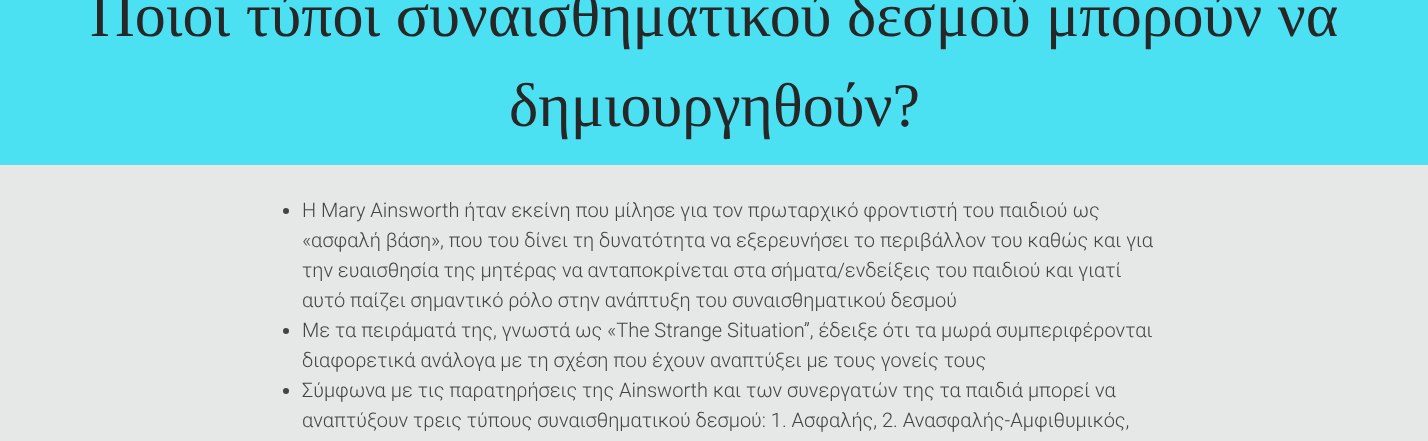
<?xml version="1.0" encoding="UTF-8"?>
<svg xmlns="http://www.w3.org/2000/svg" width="1428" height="441">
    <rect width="100%" height="100%" fill="#E6E8E7"/>
    <rect x="0" y="0" width="1428" height="165" fill="#4BE1F2"/>
    <text x="90" y="36" font-family="Liberation Serif" font-size="62" fill="#272727">Ποιοι τύποι συναισθηματικού δεσμού μπορούν να</text>
    <text x="509" y="126" font-family="Liberation Serif" font-size="62" fill="#272727">δημιουργηθούν?</text>
    <circle cx="286" cy="211" r="3" fill="#444444"/>
    <text font-family="Roboto" font-size="20" font-weight="300" fill="#444444">
        <tspan x="302" y="217">Η Mary Ainsworth ήταν εκείνη που μίλησε για τον πρωταρχικό φροντιστή του παιδιού ως</tspan>
        <tspan x="302" y="247">«ασφαλή βάση», που του δίνει τη δυνατότητα να εξερευνήσει το περιβάλλον του καθώς και για</tspan>
        <tspan x="302" y="277">την ευαισθησία της μητέρας να ανταποκρίνεται στα σήματα/ενδείξεις του παιδιού και γιατί</tspan>
        <tspan x="302" y="307">αυτό παίζει σημαντικό ρόλο στην ανάπτυξη του συναισθηματικού δεσμού</tspan>
    </text>
    <circle cx="286" cy="331" r="3" fill="#444444"/>
    <text font-family="Roboto" font-size="20" font-weight="300" fill="#444444">
        <tspan x="302" y="337">Με τα πειράματά της, γνωστά ως «The Strange Situation”, έδειξε ότι τα μωρά συμπεριφέρονται</tspan>
        <tspan x="302" y="367">διαφορετικά ανάλογα με τη σχέση που έχουν αναπτύξει με τους γονείς τους</tspan>
    </text>
    <circle cx="286" cy="391" r="3" fill="#444444"/>
    <text font-family="Roboto" font-size="20" font-weight="300" fill="#444444">
        <tspan x="302" y="397">Σύμφωνα με τις παρατηρήσεις της Ainsworth και των συνεργατών της τα παιδιά μπορεί να</tspan>
        <tspan x="302" y="427">αναπτύξουν τρεις τύπους συναισθηματικού δεσμού: 1. Ασφαλής, 2. Ανασφαλής-Αμφιθυμικός,</tspan>
    </text>
</svg>
